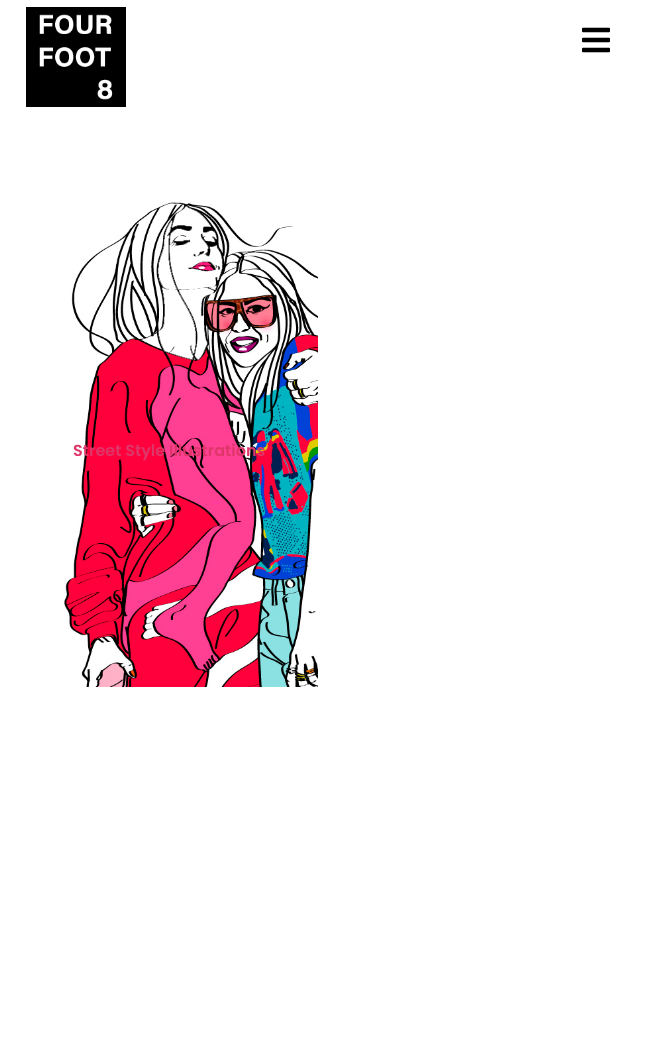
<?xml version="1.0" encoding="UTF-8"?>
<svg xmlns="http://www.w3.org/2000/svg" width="656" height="1053">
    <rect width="100%" height="100%" fill="#FFFFFF"/>
    <image x="26" y="7" width="100" height="100" href="img_01.png"/>
    <image x="582" y="27" width="28" height="26" href="img_02.png"/>
    <image x="64" y="202" width="254" height="485" href="img_03.png"/>
    <text x="73" y="456" font-family="Poppins" font-size="16" font-weight="600" fill="#DF366A">Street Style Illustrations</text>
</svg>
